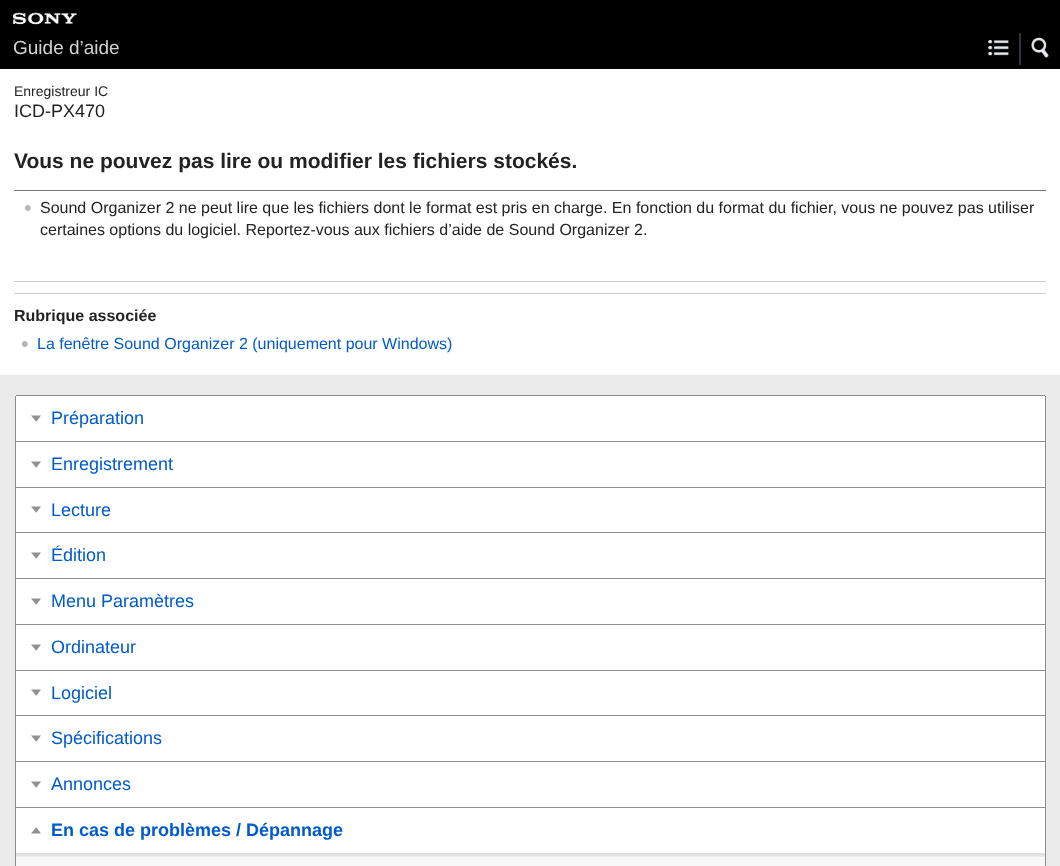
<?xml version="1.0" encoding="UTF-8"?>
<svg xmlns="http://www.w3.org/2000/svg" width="1060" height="866">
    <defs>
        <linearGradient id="g1" gradientUnits="userSpaceOnUse" x1="531" y1="853" x2="531" y2="857"><stop offset="0" stop-color="#DCDCDC"/><stop offset="1" stop-color="#ECECEC"/></linearGradient>
    </defs>
    <rect width="100%" height="100%" fill="#FFFFFF"/>
    <rect x="0" y="0" width="1060" height="69" fill="#000000"/>
    <image x="13" y="12" width="65" height="13" href="img_01.png"/>
    <text x="13" y="54" font-family="Liberation Sans" font-size="19" fill="#D2D2D2">Guide d’aide</text>
    <text x="14" y="96" font-family="Liberation Sans" font-size="14" fill="#232323">Enregistreur IC</text>
    <text x="14" y="117" font-family="Liberation Sans" font-size="18" fill="#232323">ICD-PX470</text>
    <rect x="1019" y="33" width="2" height="32" fill="#2F353D"/>
    <image x="988" y="40" width="21" height="16" href="img_02.png"/>
    <image x="1031" y="37" width="18" height="21" href="img_03.png"/>
    <rect x="14" y="190" width="1032" height="1" fill="#767676"/>
    <text x="14" y="168" font-family="Liberation Sans" font-size="21" font-weight="700" fill="#232323">Vous ne pouvez pas lire ou modifier les fichiers stockés.</text>
    <image x="24" y="205" width="7" height="6" href="img_04.png"/>
    <text font-family="Liberation Sans" font-size="16" fill="#232323">
        <tspan x="40" y="213">Sound Organizer 2 ne peut lire que les fichiers dont le format est pris en charge. En fonction du format du fichier, vous ne pouvez pas utiliser</tspan>
        <tspan x="40" y="235">certaines options du logiciel. Reportez-vous aux fichiers d’aide de Sound Organizer 2.</tspan>
    </text>
    <rect x="14" y="281" width="1032" height="1" fill="#CFCFCF"/>
    <rect x="14" y="293" width="1032" height="1" fill="#CFCFCF"/>
    <text x="14" y="321" font-family="Liberation Sans" font-size="16" font-weight="700" fill="#232323">Rubrique associée</text>
    <image x="21" y="341" width="7" height="6" href="img_04.png"/>
    <text x="37" y="349" font-family="Liberation Sans" font-size="16" fill="#005BC8">La fenêtre Sound Organizer 2 (uniquement pour Windows)</text>
    <rect x="0" y="375" width="1060" height="491" fill="#EBEBEB"/>
    <rect x="15" y="395" width="1031" height="458" fill="#FFFFFF"/>
    <rect x="16" y="395" width="1029" height="1" fill="#8D8D8D"/>
    <rect x="1045" y="396" width="1" height="45" fill="#8D8D8D"/>
    <rect x="15" y="396" width="1" height="45" fill="#8D8D8D"/>
    <path d="M 31 415.5 L 36 421.5 H 36.5 L 41 415.5 Z" fill="#919191"/>
    <text x="51" y="424" font-family="Liberation Sans" font-size="18" fill="#005BC8">Préparation</text>
    <rect x="15" y="441" width="1031" height="1" fill="#8D8D8D"/>
    <rect x="1045" y="441" width="1" height="46" fill="#8D8D8D"/>
    <rect x="15" y="441" width="1" height="46" fill="#8D8D8D"/>
    <path d="M 31 461.5 L 36 467.5 H 36.5 L 41 461.5 Z" fill="#919191"/>
    <text x="51" y="470" font-family="Liberation Sans" font-size="18" fill="#005BC8">Enregistrement</text>
    <rect x="15" y="487" width="1031" height="1" fill="#8D8D8D"/>
    <rect x="1045" y="487" width="1" height="45" fill="#8D8D8D"/>
    <rect x="15" y="487" width="1" height="45" fill="#8D8D8D"/>
    <path d="M 31 506.5 L 36 512.5 H 36.5 L 41 506.5 Z" fill="#919191"/>
    <text x="51" y="516" font-family="Liberation Sans" font-size="18" fill="#005BC8">Lecture</text>
    <rect x="15" y="532" width="1031" height="1" fill="#8D8D8D"/>
    <rect x="1045" y="532" width="1" height="46" fill="#8D8D8D"/>
    <rect x="15" y="532" width="1" height="46" fill="#8D8D8D"/>
    <path d="M 31 552.5 L 36 558.5 H 36.5 L 41 552.5 Z" fill="#919191"/>
    <text x="51" y="561" font-family="Liberation Sans" font-size="18" fill="#005BC8">Édition</text>
    <rect x="15" y="578" width="1031" height="1" fill="#8D8D8D"/>
    <rect x="1045" y="578" width="1" height="46" fill="#8D8D8D"/>
    <rect x="15" y="578" width="1" height="46" fill="#8D8D8D"/>
    <path d="M 31 598.5 L 36 604.5 H 36.5 L 41 598.5 Z" fill="#919191"/>
    <text x="51" y="607" font-family="Liberation Sans" font-size="18" fill="#005BC8">Menu Paramètres</text>
    <rect x="15" y="624" width="1031" height="1" fill="#8D8D8D"/>
    <rect x="1045" y="624" width="1" height="46" fill="#8D8D8D"/>
    <rect x="15" y="624" width="1" height="46" fill="#8D8D8D"/>
    <path d="M 31 644.5 L 36 650.5 H 36.5 L 41 644.5 Z" fill="#919191"/>
    <text x="51" y="653" font-family="Liberation Sans" font-size="18" fill="#005BC8">Ordinateur</text>
    <rect x="15" y="670" width="1031" height="1" fill="#8D8D8D"/>
    <rect x="1045" y="670" width="1" height="45" fill="#8D8D8D"/>
    <rect x="15" y="670" width="1" height="45" fill="#8D8D8D"/>
    <path d="M 31 689.5 L 36 695.5 H 36.5 L 41 689.5 Z" fill="#919191"/>
    <text x="51" y="699" font-family="Liberation Sans" font-size="18" fill="#005BC8">Logiciel</text>
    <rect x="15" y="715" width="1031" height="1" fill="#8D8D8D"/>
    <rect x="1045" y="715" width="1" height="46" fill="#8D8D8D"/>
    <rect x="15" y="715" width="1" height="46" fill="#8D8D8D"/>
    <path d="M 31 735.5 L 36 741.5 H 36.5 L 41 735.5 Z" fill="#919191"/>
    <text x="51" y="744" font-family="Liberation Sans" font-size="18" fill="#005BC8">Spécifications</text>
    <rect x="15" y="761" width="1031" height="1" fill="#8D8D8D"/>
    <rect x="1045" y="761" width="1" height="46" fill="#8D8D8D"/>
    <rect x="15" y="761" width="1" height="46" fill="#8D8D8D"/>
    <path d="M 31 781.5 L 36 787.5 H 36.5 L 41 781.5 Z" fill="#919191"/>
    <text x="51" y="790" font-family="Liberation Sans" font-size="18" fill="#005BC8">Annonces</text>
    <rect x="15" y="807" width="1031" height="1" fill="#8D8D8D"/>
    <rect x="1045" y="807" width="1" height="59" fill="#8D8D8D"/>
    <rect x="15" y="807" width="1" height="59" fill="#8D8D8D"/>
    <path d="M 31 833.5 L 36 827.5 H 36.5 L 41 833.5 Z" fill="#919191"/>
    <text x="51" y="836" font-family="Liberation Sans" font-size="18" font-weight="700" fill="#005BC8">En cas de problèmes / Dépannage</text>
    <rect x="16" y="857" width="1029" height="9" fill="#F8F8F8"/>
    <rect x="16" y="853" width="1029" height="3" fill="url(#g1)"/>
</svg>
